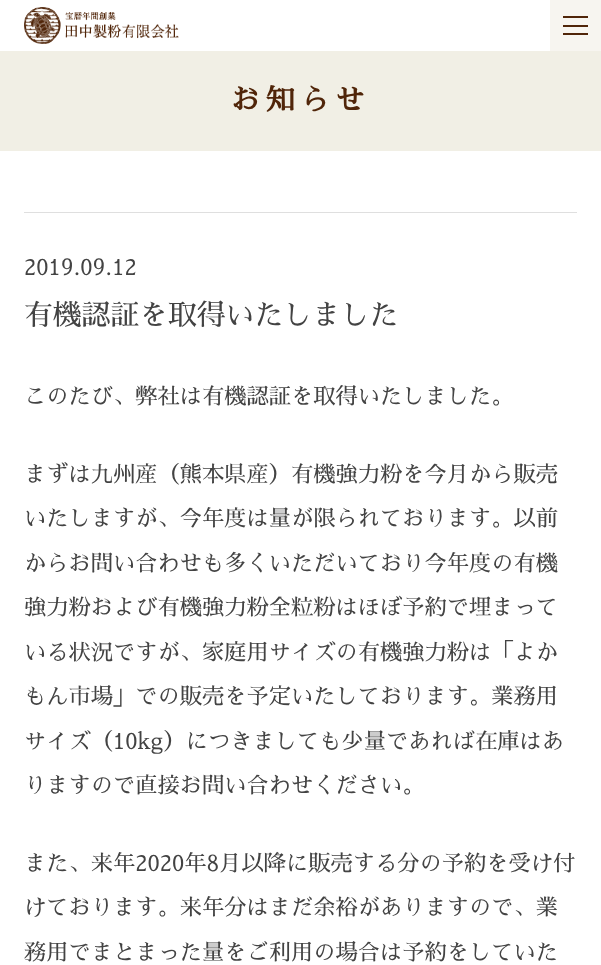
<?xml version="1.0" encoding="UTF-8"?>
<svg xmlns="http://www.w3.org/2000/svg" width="601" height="965">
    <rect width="100%" height="100%" fill="#FFFFFF"/>
    <image x="24" y="7" width="155" height="37" href="img_01.png"/>
    <rect x="550" y="0" width="51" height="51" fill="#F7F5F0"/>
    <rect x="563" y="16" width="25" height="2" fill="#502509"/>
    <rect x="563" y="25" width="25" height="2" fill="#502509"/>
    <rect x="563" y="33" width="25" height="2" fill="#502509"/>
    <rect x="0" y="51" width="601" height="100" fill="#F1EFE5"/>
    <text x="231" y="110" font-family="Sawarabi Mincho" font-size="28.8" font-weight="700" letter-spacing="6" fill="#502509">お知らせ</text>
    <rect x="24" y="212" width="553" height="1" fill="#DFDFDF"/>
    <text x="24" y="275" font-family="Sawarabi Mincho" font-size="22.25" fill="#434343">2019.09.12</text>
    <text x="24" y="325" font-family="Sawarabi Mincho" font-size="28.8" fill="#434343">有機認証を取得いたしました</text>
    <text x="24" y="404" font-family="Sawarabi Mincho" font-size="22.25" fill="#434343">このたび、弊社は有機認証を取得いたしました。</text>
    <text font-family="Sawarabi Mincho" font-size="22.25" fill="#434343">
        <tspan x="24" y="482">まずは九州産（熊本県産）有機強力粉を今月から販売</tspan>
        <tspan x="24" y="526">いたしますが、今年度は量が限られております。以前</tspan>
    </text>
    <text font-family="Sawarabi Mincho" font-size="22.25" fill="#434343">
        <tspan x="24" y="571">からお問い合わせも多くいただいており今年度の有機</tspan>
        <tspan x="24" y="615">強力粉および有機強力粉全粒粉はほぼ予約で埋まって</tspan>
    </text>
    <text font-family="Sawarabi Mincho" font-size="22.25" fill="#434343">
        <tspan x="24" y="660">いる状況ですが、家庭用サイズの有機強力粉は「よか</tspan>
        <tspan x="24" y="704">もん市場」での販売を予定いたしております。業務用</tspan>
    </text>
    <text font-family="Sawarabi Mincho" font-size="22.25" fill="#434343">
        <tspan x="24" y="749">サイズ（10kg）につきましても少量であれば在庫はあ</tspan>
        <tspan x="24" y="793">りますので直接お問い合わせください。</tspan>
    </text>
    <text font-family="Sawarabi Mincho" font-size="22.25" fill="#434343">
        <tspan x="24" y="871">また、来年2020年8月以降に販売する分の予約を受け付</tspan>
        <tspan x="24" y="915">けております。来年分はまだ余裕がありますので、業</tspan>
    </text>
    <text x="24" y="960" font-family="Sawarabi Mincho" font-size="22.25" fill="#434343">務用でまとまった量をご利用の場合は予約をしていた</text>
</svg>
